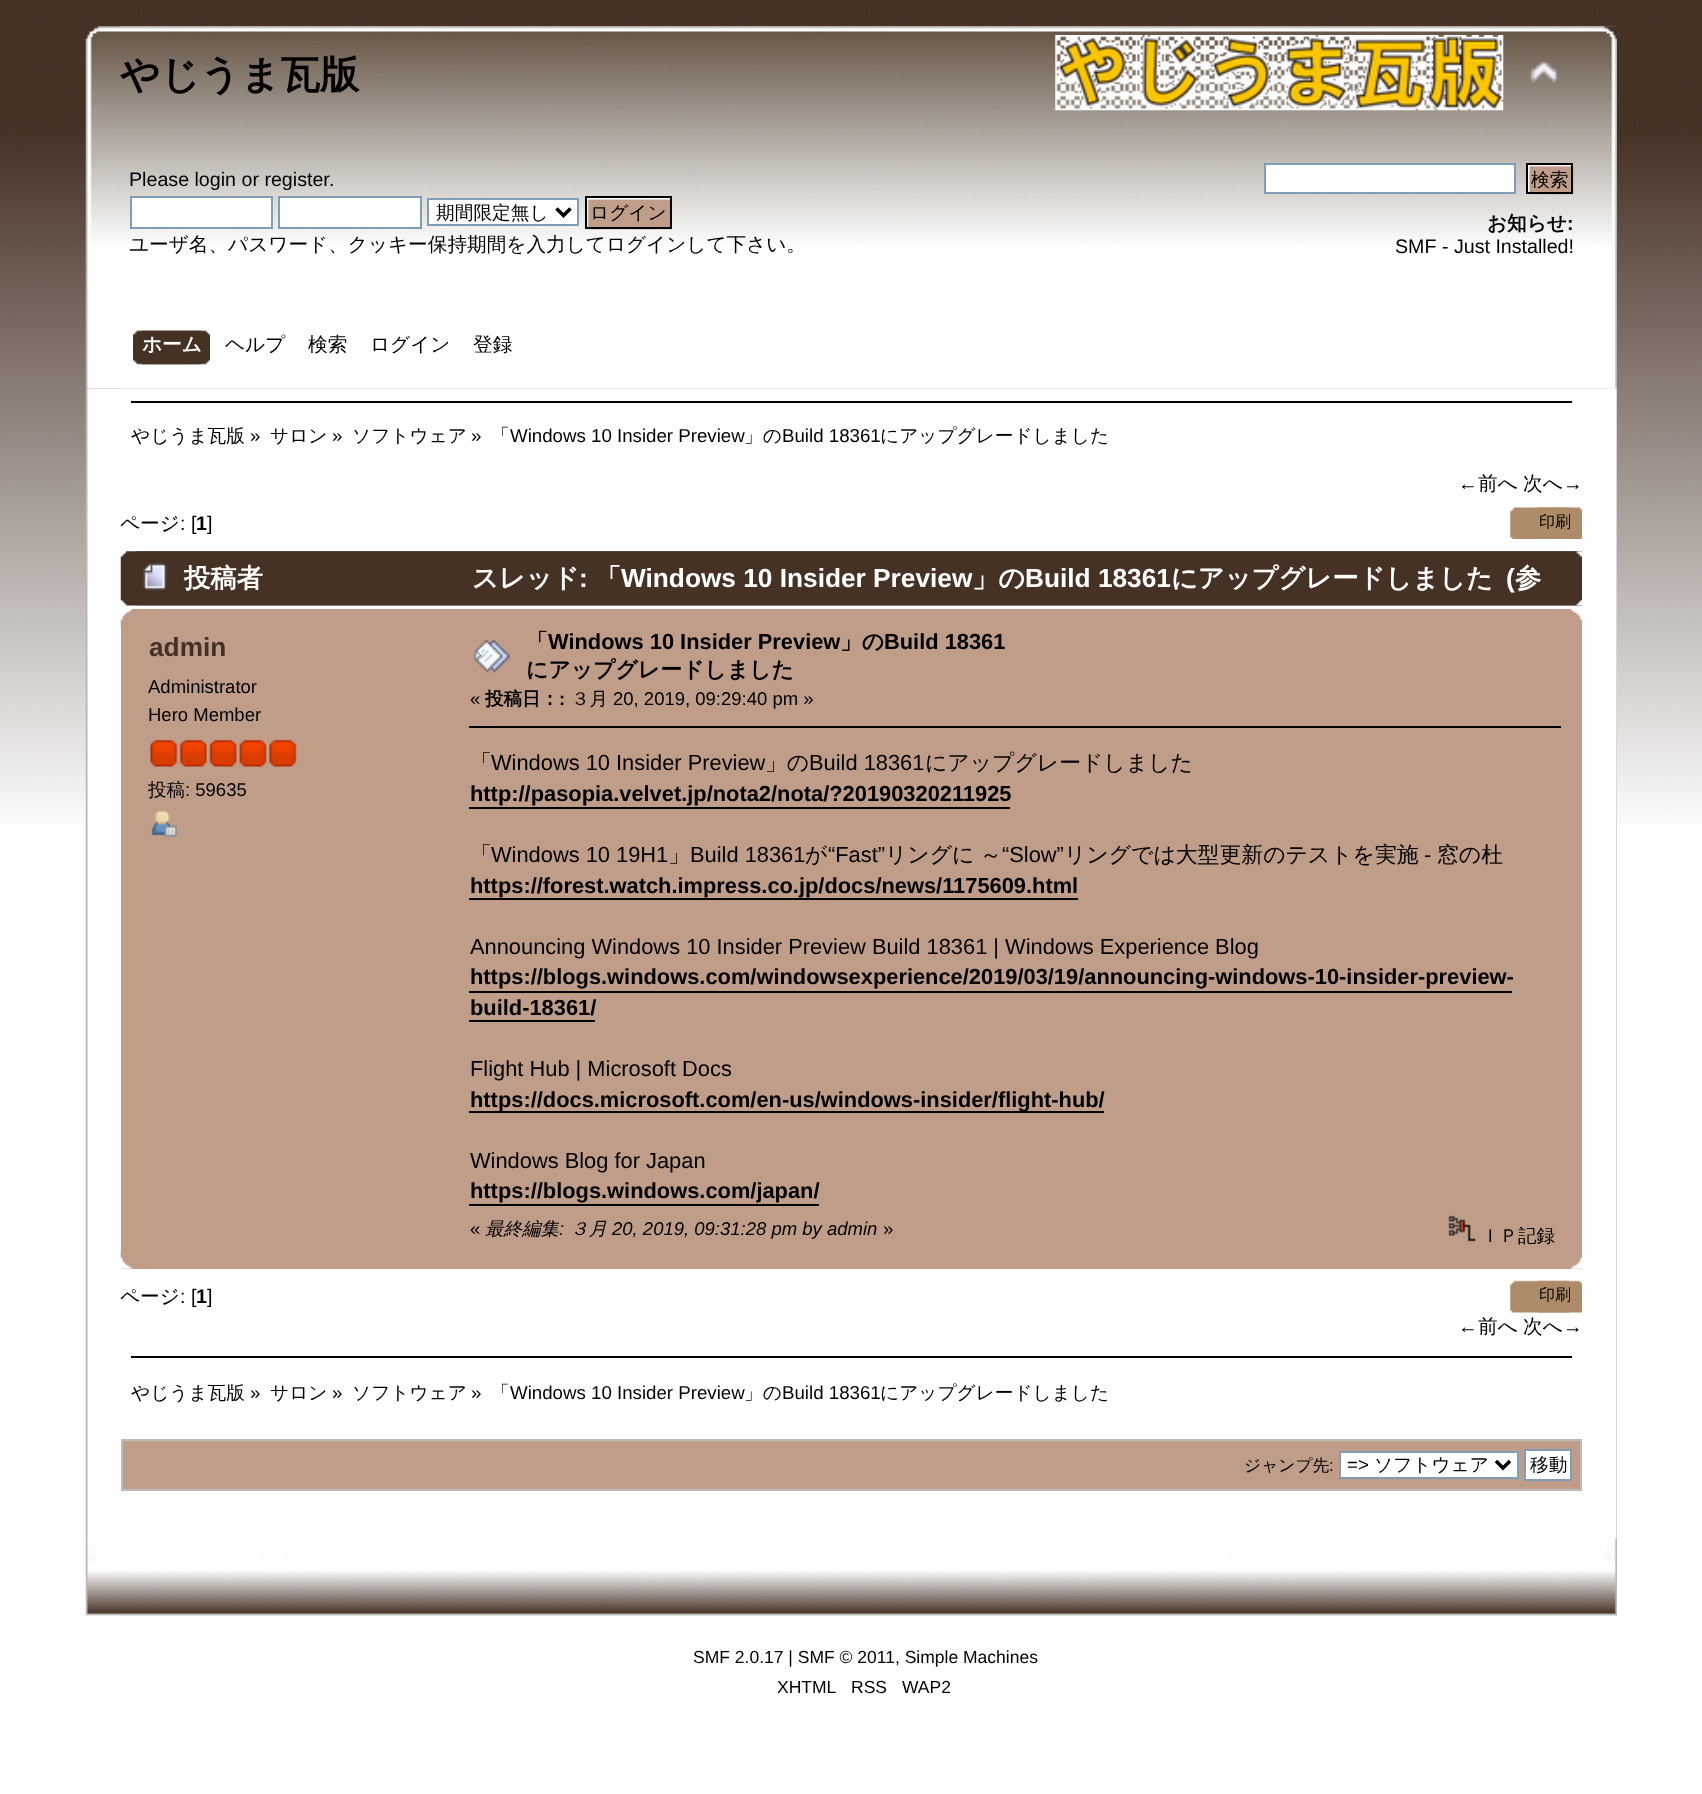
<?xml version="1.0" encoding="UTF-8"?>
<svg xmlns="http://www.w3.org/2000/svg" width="1702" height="1794">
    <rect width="100%" height="100%" fill="#FFFFFF"/>
    <image x="0" y="0" width="1702" height="824" href="img_01.png"/>
    <image x="85" y="26" width="1532" height="363" href="img_02.png"/>
    <image x="121" y="26" width="1496" height="363" href="img_03.png"/>
    <text x="120" y="88" font-family="WenQuanYi Zen Hei" font-size="39.25" font-weight="700" fill="#000000">やじうま瓦版</text>
    <image x="1055" y="35" width="449" height="76" href="img_04.png"/>
    <image x="1529" y="61" width="29" height="22" href="img_05.png"/>
    <text x="129" y="186" font-family="Liberation Sans" font-size="19.65" fill="#000000">Please login or register</text>
    <text x="329" y="186" font-family="Liberation Sans" font-size="19.65" fill="#000000">.</text>
    <rect x="131" y="197" width="141" height="31" fill="#FFFFFF" stroke="#7F9DB9" stroke-width="2"/>
    <rect x="279" y="197" width="142" height="31" fill="#FFFFFF" stroke="#7F9DB9" stroke-width="2"/>
    <rect x="428" y="199" width="150" height="26" fill="#FFFFFF" stroke="#7F9DB9" stroke-width="2"/>
    <path d="M 556.5 208.5 L 563.5 215.5 L 570.5 208.5" fill="none" stroke="#000000" stroke-width="3.5"/>
    <text x="436" y="219" font-family="WenQuanYi Zen Hei" font-size="18.7" font-weight="500" fill="#000000">期間限定無し</text>
    <image x="586" y="198" width="86" height="32" href="img_06.png"/>
    <rect x="586" y="197" width="85" height="31" fill="none" stroke="#000000" stroke-width="2"/>
    <text x="590" y="219" font-family="WenQuanYi Zen Hei" font-size="18.7" font-weight="500" fill="#000000">ログイン</text>
    <text x="129" y="251" font-family="WenQuanYi Zen Hei" font-size="19.65" font-weight="500" fill="#000000">ユーザ名、パスワード、クッキー保持期間を入力してログインして下さい。</text>
    <rect x="1265" y="164" width="250" height="29" fill="#FFFFFF" stroke="#7F9DB9" stroke-width="2"/>
    <image x="1527" y="164" width="47" height="31" href="img_07.png"/>
    <rect x="1527" y="164" width="45" height="29" fill="none" stroke="#000000" stroke-width="2"/>
    <text x="1531" y="186" font-family="WenQuanYi Zen Hei" font-size="18.7" font-weight="500" fill="#000000">検索</text>
    <text x="1487" y="230" font-family="WenQuanYi Zen Hei" font-size="19.65" font-weight="700" fill="#000000">お知らせ</text>
    <text x="1567" y="230" font-family="Liberation Sans" font-size="19.65" font-weight="700" fill="#000000">:</text>
    <text x="1395" y="253" font-family="Liberation Sans" font-size="19.65" fill="#000000">SMF - Just Installed!</text>
    <image x="141" y="330" width="69" height="35" href="img_08.png"/>
    <image x="133" y="330" width="69" height="35" href="img_09.png"/>
    <text x="142" y="351" font-family="WenQuanYi Zen Hei" font-size="19.65" font-weight="700" fill="#FFFFFF">ホーム</text>
    <text x="225" y="351" font-family="WenQuanYi Zen Hei" font-size="19.65" font-weight="500" fill="#000000">ヘルプ</text>
    <text x="308" y="351" font-family="WenQuanYi Zen Hei" font-size="19.65" font-weight="500" fill="#000000">検索</text>
    <text x="370" y="351" font-family="WenQuanYi Zen Hei" font-size="19.65" font-weight="500" fill="#000000">ログイン</text>
    <text x="473" y="351" font-family="WenQuanYi Zen Hei" font-size="19.65" font-weight="500" fill="#000000">登録</text>
    <image x="85" y="388" width="1532" height="1151" href="img_10.png"/>
    <image x="1615" y="388" width="2" height="1151" href="img_11.png"/>
    <rect x="131" y="401" width="1441" height="2" fill="#000000"/>
    <text x="131" y="442" font-family="WenQuanYi Zen Hei" font-size="18.7" font-weight="500" fill="#000000">やじうま瓦版</text>
    <text x="250" y="442" font-family="Liberation Sans" font-size="18.7" fill="#000000">»</text>
    <text x="270" y="442" font-family="WenQuanYi Zen Hei" font-size="18.7" font-weight="500" fill="#000000">サロン</text>
    <text x="332" y="442" font-family="Liberation Sans" font-size="18.7" fill="#000000">»</text>
    <text x="352" y="442" font-family="WenQuanYi Zen Hei" font-size="18.7" font-weight="500" fill="#000000">ソフトウェア</text>
    <text x="471" y="442" font-family="Liberation Sans" font-size="18.7" fill="#000000">»</text>
    <text x="491" y="442" font-family="WenQuanYi Zen Hei" font-size="18.7" font-weight="500" fill="#000000">「</text>
    <text x="510" y="442" font-family="Liberation Sans" font-size="18.7" fill="#000000">Windows 10 Insider Preview</text>
    <text x="744" y="442" font-family="WenQuanYi Zen Hei" font-size="18.7" font-weight="500" fill="#000000">」の</text>
    <text x="782" y="442" font-family="Liberation Sans" font-size="18.7" fill="#000000">Build 18361</text>
    <text x="880" y="442" font-family="WenQuanYi Zen Hei" font-size="18.7" font-weight="500" fill="#000000">にアップグレードしました</text>
    <text x="1458" y="490" font-family="Liberation Sans" font-size="19.65" fill="#000000">←</text>
    <text x="1478" y="490" font-family="WenQuanYi Zen Hei" font-size="19.65" font-weight="500" fill="#000000">前へ</text>
    <text x="1523" y="490" font-family="WenQuanYi Zen Hei" font-size="19.65" font-weight="500" fill="#000000">次へ</text>
    <text x="1563" y="490" font-family="Liberation Sans" font-size="19.65" fill="#000000">→</text>
    <text x="120" y="530" font-family="WenQuanYi Zen Hei" font-size="19.65" font-weight="500" fill="#000000">ページ</text>
    <text x="180" y="530" font-family="Liberation Sans" font-size="19.65" fill="#000000">: [</text>
    <text x="196" y="530" font-family="Liberation Sans" font-size="19.65" font-weight="700" fill="#000000">1</text>
    <text x="207" y="530" font-family="Liberation Sans" font-size="19.65" fill="#000000">]</text>
    <image x="1510" y="507" width="60" height="32" href="img_12.png"/>
    <image x="1538" y="507" width="44" height="32" href="img_13.png"/>
    <text x="1539" y="527" font-family="WenQuanYi Zen Hei" font-size="16" font-weight="500" fill="#000000">印刷</text>
    <image x="120" y="551" width="1462" height="55" href="img_14.png"/>
    <image x="136" y="551" width="1446" height="55" href="img_15.png"/>
    <image x="143" y="563" width="24" height="28" href="img_16.png"/>
    <text x="184" y="587" font-family="WenQuanYi Zen Hei" font-size="26.25" font-weight="700" fill="#FFFFFF">投稿者</text>
    <text x="472" y="587" font-family="WenQuanYi Zen Hei" font-size="26.25" font-weight="700" fill="#FFFFFF">スレッド</text>
    <text x="579" y="587" font-family="Liberation Sans" font-size="26.25" font-weight="700" fill="#FFFFFF">:</text>
    <text x="595" y="587" font-family="WenQuanYi Zen Hei" font-size="26.25" font-weight="700" fill="#FFFFFF">「</text>
    <text x="621" y="587" font-family="Liberation Sans" font-size="26.25" font-weight="700" fill="#FFFFFF">Windows 10 Insider Preview</text>
    <text x="972" y="587" font-family="WenQuanYi Zen Hei" font-size="26.25" font-weight="700" fill="#FFFFFF">」の</text>
    <text x="1025" y="587" font-family="Liberation Sans" font-size="26.25" font-weight="700" fill="#FFFFFF">Build 18361</text>
    <text x="1171" y="587" font-family="WenQuanYi Zen Hei" font-size="26.25" font-weight="700" fill="#FFFFFF">にアップグレードしました</text>
    <text x="1506" y="587" font-family="Liberation Sans" font-size="26.25" font-weight="700" fill="#FFFFFF">(</text>
    <text x="1515" y="587" font-family="WenQuanYi Zen Hei" font-size="26.25" font-weight="700" fill="#FFFFFF">参</text>
    <rect x="121" y="609" width="1461" height="660" fill="#BF9D89"/>
    <image x="120" y="609" width="13" height="20" href="img_17.png"/>
    <image x="1570" y="609" width="12" height="13" href="img_18.png"/>
    <text x="149" y="656" font-family="Liberation Sans" font-size="26.25" font-weight="700" fill="#463225">admin</text>
    <text font-family="Liberation Sans" font-size="18.5" fill="#000000">
        <tspan x="148" y="693">Administrator</tspan>
        <tspan x="148" y="721">Hero Member</tspan>
    </text>
    <image x="150" y="739" width="28" height="28" href="img_19.png"/>
    <image x="179" y="739" width="28" height="28" href="img_20.png"/>
    <image x="209" y="739" width="28" height="28" href="img_21.png"/>
    <image x="239" y="739" width="28" height="28" href="img_22.png"/>
    <image x="269" y="739" width="28" height="28" href="img_19.png"/>
    <text x="148" y="796" font-family="WenQuanYi Zen Hei" font-size="18.5" font-weight="500" fill="#000000">投稿</text>
    <text x="185" y="796" font-family="Liberation Sans" font-size="18.5" fill="#000000">: 59635</text>
    <image x="151" y="810" width="26" height="27" href="img_23.png"/>
    <image x="474" y="640" width="36" height="33" href="img_24.png"/>
    <text x="526" y="649" font-family="WenQuanYi Zen Hei" font-size="21.85" font-weight="700" fill="#000000">「</text>
    <text x="548" y="649" font-family="Liberation Sans" font-size="21.85" font-weight="700" fill="#000000">Windows 10 Insider Preview</text>
    <text x="840" y="649" font-family="WenQuanYi Zen Hei" font-size="21.85" font-weight="700" fill="#000000">」の</text>
    <text x="884" y="649" font-family="Liberation Sans" font-size="21.85" font-weight="700" fill="#000000">Build 18361</text>
    <text x="526" y="677" font-family="WenQuanYi Zen Hei" font-size="21.85" font-weight="700" fill="#000000">にアップグレードしました</text>
    <text x="470" y="705" font-family="Liberation Sans" font-size="18.5" fill="#000000">«</text>
    <text x="485" y="705" font-family="WenQuanYi Zen Hei" font-size="18.5" font-weight="700" fill="#000000">投稿日：</text>
    <text x="559" y="705" font-family="Liberation Sans" font-size="18.5" font-weight="700" fill="#000000">:</text>
    <text x="571" y="705" font-family="WenQuanYi Zen Hei" font-size="18.5" font-weight="500" fill="#000000">３月</text>
    <text x="613" y="705" font-family="Liberation Sans" font-size="18.5" fill="#000000">20, 2019, 09:29:40 pm »</text>
    <rect x="469" y="726" width="1092" height="2" fill="#000000"/>
    <text x="470" y="770" font-family="WenQuanYi Zen Hei" font-size="21.85" font-weight="500" fill="#000000">「</text>
    <text x="491" y="770" font-family="Liberation Sans" font-size="21.85" fill="#000000">Windows 10 Insider Preview</text>
    <text x="765" y="770" font-family="WenQuanYi Zen Hei" font-size="21.85" font-weight="500" fill="#000000">」の</text>
    <text x="809" y="770" font-family="Liberation Sans" font-size="21.85" fill="#000000">Build 18361</text>
    <text x="925" y="770" font-family="WenQuanYi Zen Hei" font-size="21.85" font-weight="500" fill="#000000">にアップグレードしました</text>
    <text x="470" y="801" font-family="Liberation Sans" font-size="21.85" font-weight="700" fill="#000000">http://pasopia.velvet.jp/nota2/nota/?20190320211925</text>
    <rect x="469" y="807" width="541" height="2" fill="#000000"/>
    <text x="470" y="862" font-family="WenQuanYi Zen Hei" font-size="21.85" font-weight="500" fill="#000000">「</text>
    <text x="491" y="862" font-family="Liberation Sans" font-size="21.85" fill="#000000">Windows 10 19H1</text>
    <text x="668" y="862" font-family="WenQuanYi Zen Hei" font-size="21.85" font-weight="500" fill="#000000">」</text>
    <text x="690" y="862" font-family="Liberation Sans" font-size="21.85" fill="#000000">Build 18361</text>
    <text x="805" y="862" font-family="WenQuanYi Zen Hei" font-size="21.85" font-weight="500" fill="#000000">が</text>
    <text x="828" y="862" font-family="Liberation Sans" font-size="21.85" fill="#000000">“Fast”</text>
    <text x="885" y="862" font-family="WenQuanYi Zen Hei" font-size="21.85" font-weight="500" fill="#000000">リングに</text>
    <text x="980" y="862" font-family="WenQuanYi Zen Hei" font-size="21.85" font-weight="500" fill="#000000">～</text>
    <text x="1002" y="862" font-family="Liberation Sans" font-size="21.85" fill="#000000">“Slow”</text>
    <text x="1064" y="862" font-family="WenQuanYi Zen Hei" font-size="21.85" font-weight="500" fill="#000000">リングでは大型更新のテストを実施</text>
    <text x="1424" y="862" font-family="Liberation Sans" font-size="21.85" fill="#000000">-</text>
    <text x="1437" y="862" font-family="WenQuanYi Zen Hei" font-size="21.85" font-weight="500" fill="#000000">窓の杜</text>
    <text x="470" y="893" font-family="Liberation Sans" font-size="21.85" font-weight="700" fill="#000000">https://forest.watch.impress.co.jp/docs/news/1175609.html</text>
    <rect x="469" y="898" width="609" height="2" fill="#000000"/>
    <text x="470" y="954" font-family="Liberation Sans" font-size="21.85" fill="#000000">Announcing Windows 10 Insider Preview Build 18361 | Windows Experience Blog</text>
    <text x="470" y="984" font-family="Liberation Sans" font-size="21.85" font-weight="700" fill="#000000">https://blogs.windows.com/windowsexperience/2019/03/19/announcing-windows-10-insider-preview-</text>
    <rect x="469" y="991" width="1043" height="2" fill="#000000"/>
    <text x="470" y="1015" font-family="Liberation Sans" font-size="21.85" font-weight="700" fill="#000000">build-18361/</text>
    <rect x="469" y="1020" width="126" height="2" fill="#000000"/>
    <text x="470" y="1076" font-family="Liberation Sans" font-size="21.85" fill="#000000">Flight Hub | Microsoft Docs</text>
    <rect x="469" y="1111" width="635" height="2" fill="#000000"/>
    <text x="470" y="1107" font-family="Liberation Sans" font-size="21.85" font-weight="700" fill="#000000">https://docs.microsoft.com/en-us/windows-insider/flight-hub/</text>
    <text x="470" y="1168" font-family="Liberation Sans" font-size="21.85" fill="#000000">Windows Blog for Japan</text>
    <text x="470" y="1198" font-family="Liberation Sans" font-size="21.85" font-weight="700" fill="#000000">https://blogs.windows.com/japan/</text>
    <rect x="469" y="1204" width="350" height="2" fill="#000000"/>
    <text x="470" y="1235" font-family="Liberation Sans" font-size="18.5" fill="#000000">«</text>
    <text x="485" y="1235" font-family="WenQuanYi Zen Hei" font-size="18.5" font-weight="500" font-style="italic" fill="#000000">最終編集</text>
    <text x="559" y="1235" font-family="Liberation Sans" font-size="18.5" font-style="italic" fill="#000000">:</text>
    <text x="570" y="1235" font-family="WenQuanYi Zen Hei" font-size="18.5" font-weight="500" font-style="italic" fill="#000000">３月</text>
    <text x="612" y="1235" font-family="Liberation Sans" font-size="18.5" font-style="italic" fill="#000000">20, 2019, 09:31:28 pm by admin</text>
    <text x="883" y="1235" font-family="Liberation Sans" font-size="18.5" fill="#000000">»</text>
    <image x="1448" y="1215" width="28" height="27" href="img_25.png"/>
    <text x="1481" y="1242" font-family="WenQuanYi Zen Hei" font-size="18.5" font-weight="500" fill="#000000">ＩＰ記録</text>
    <image x="120" y="1249" width="13" height="20" href="img_26.png"/>
    <image x="1570" y="1256" width="12" height="13" href="img_27.png"/>
    <text x="120" y="1303" font-family="WenQuanYi Zen Hei" font-size="19.65" font-weight="500" fill="#000000">ページ</text>
    <text x="180" y="1303" font-family="Liberation Sans" font-size="19.65" fill="#000000">: [</text>
    <text x="196" y="1303" font-family="Liberation Sans" font-size="19.65" font-weight="700" fill="#000000">1</text>
    <text x="207" y="1303" font-family="Liberation Sans" font-size="19.65" fill="#000000">]</text>
    <image x="1510" y="1280" width="60" height="33" href="img_28.png"/>
    <image x="1538" y="1280" width="44" height="33" href="img_29.png"/>
    <text x="1539" y="1300" font-family="WenQuanYi Zen Hei" font-size="16" font-weight="500" fill="#000000">印刷</text>
    <text x="1458" y="1333" font-family="Liberation Sans" font-size="19.65" fill="#000000">←</text>
    <text x="1478" y="1333" font-family="WenQuanYi Zen Hei" font-size="19.65" font-weight="500" fill="#000000">前へ</text>
    <text x="1523" y="1333" font-family="WenQuanYi Zen Hei" font-size="19.65" font-weight="500" fill="#000000">次へ</text>
    <text x="1563" y="1333" font-family="Liberation Sans" font-size="19.65" fill="#000000">→</text>
    <rect x="131" y="1356" width="1441" height="2" fill="#000000"/>
    <text x="131" y="1399" font-family="WenQuanYi Zen Hei" font-size="18.7" font-weight="500" fill="#000000">やじうま瓦版</text>
    <text x="250" y="1399" font-family="Liberation Sans" font-size="18.7" fill="#000000">»</text>
    <text x="270" y="1399" font-family="WenQuanYi Zen Hei" font-size="18.7" font-weight="500" fill="#000000">サロン</text>
    <text x="332" y="1399" font-family="Liberation Sans" font-size="18.7" fill="#000000">»</text>
    <text x="352" y="1399" font-family="WenQuanYi Zen Hei" font-size="18.7" font-weight="500" fill="#000000">ソフトウェア</text>
    <text x="471" y="1399" font-family="Liberation Sans" font-size="18.7" fill="#000000">»</text>
    <text x="491" y="1399" font-family="WenQuanYi Zen Hei" font-size="18.7" font-weight="500" fill="#000000">「</text>
    <text x="510" y="1399" font-family="Liberation Sans" font-size="18.7" fill="#000000">Windows 10 Insider Preview</text>
    <text x="744" y="1399" font-family="WenQuanYi Zen Hei" font-size="18.7" font-weight="500" fill="#000000">」の</text>
    <text x="782" y="1399" font-family="Liberation Sans" font-size="18.7" fill="#000000">Build 18361</text>
    <text x="880" y="1399" font-family="WenQuanYi Zen Hei" font-size="18.7" font-weight="500" fill="#000000">にアップグレードしました</text>
    <rect x="122" y="1440" width="1459" height="50" fill="#BF9D89" stroke="#BBBBBB" stroke-width="2"/>
    <text x="1244" y="1471" font-family="WenQuanYi Zen Hei" font-size="16.75" font-weight="500" fill="#000000">ジャンプ先</text>
    <text x="1329" y="1471" font-family="Liberation Sans" font-size="16.75" fill="#000000">:</text>
    <rect x="1340" y="1452" width="178" height="26" fill="#FFFFFF" stroke="#7F9DB9" stroke-width="2"/>
    <path d="M 1496 1461 L 1503 1468 L 1510 1461" fill="none" stroke="#000000" stroke-width="3.5"/>
    <text x="1347" y="1471" font-family="Liberation Sans" font-size="18.7" fill="#000000">=&gt;</text>
    <text x="1374" y="1471" font-family="WenQuanYi Zen Hei" font-size="18.7" font-weight="500" fill="#000000">ソフトウェア</text>
    <rect x="1525" y="1450" width="46" height="30" fill="#FFFFFF" stroke="#7F9DB9" stroke-width="2"/>
    <text x="1530" y="1471" font-family="WenQuanYi Zen Hei" font-size="18.7" font-weight="500" fill="#000000">移動</text>
    <image x="85" y="1538" width="1532" height="78" href="img_30.png"/>
    <image x="121" y="1538" width="1496" height="78" href="img_31.png"/>
    <text x="693" y="1663" font-family="Liberation Sans" font-size="17.5" fill="#000000">SMF 2.0.17 | SMF © 2011, Simple Machines</text>
    <text x="777" y="1693" font-family="Liberation Sans" font-size="17.5" fill="#000000">XHTML</text>
    <text x="851" y="1693" font-family="Liberation Sans" font-size="17.5" fill="#000000">RSS</text>
    <text x="902" y="1693" font-family="Liberation Sans" font-size="17.5" fill="#000000">WAP2</text>
</svg>
